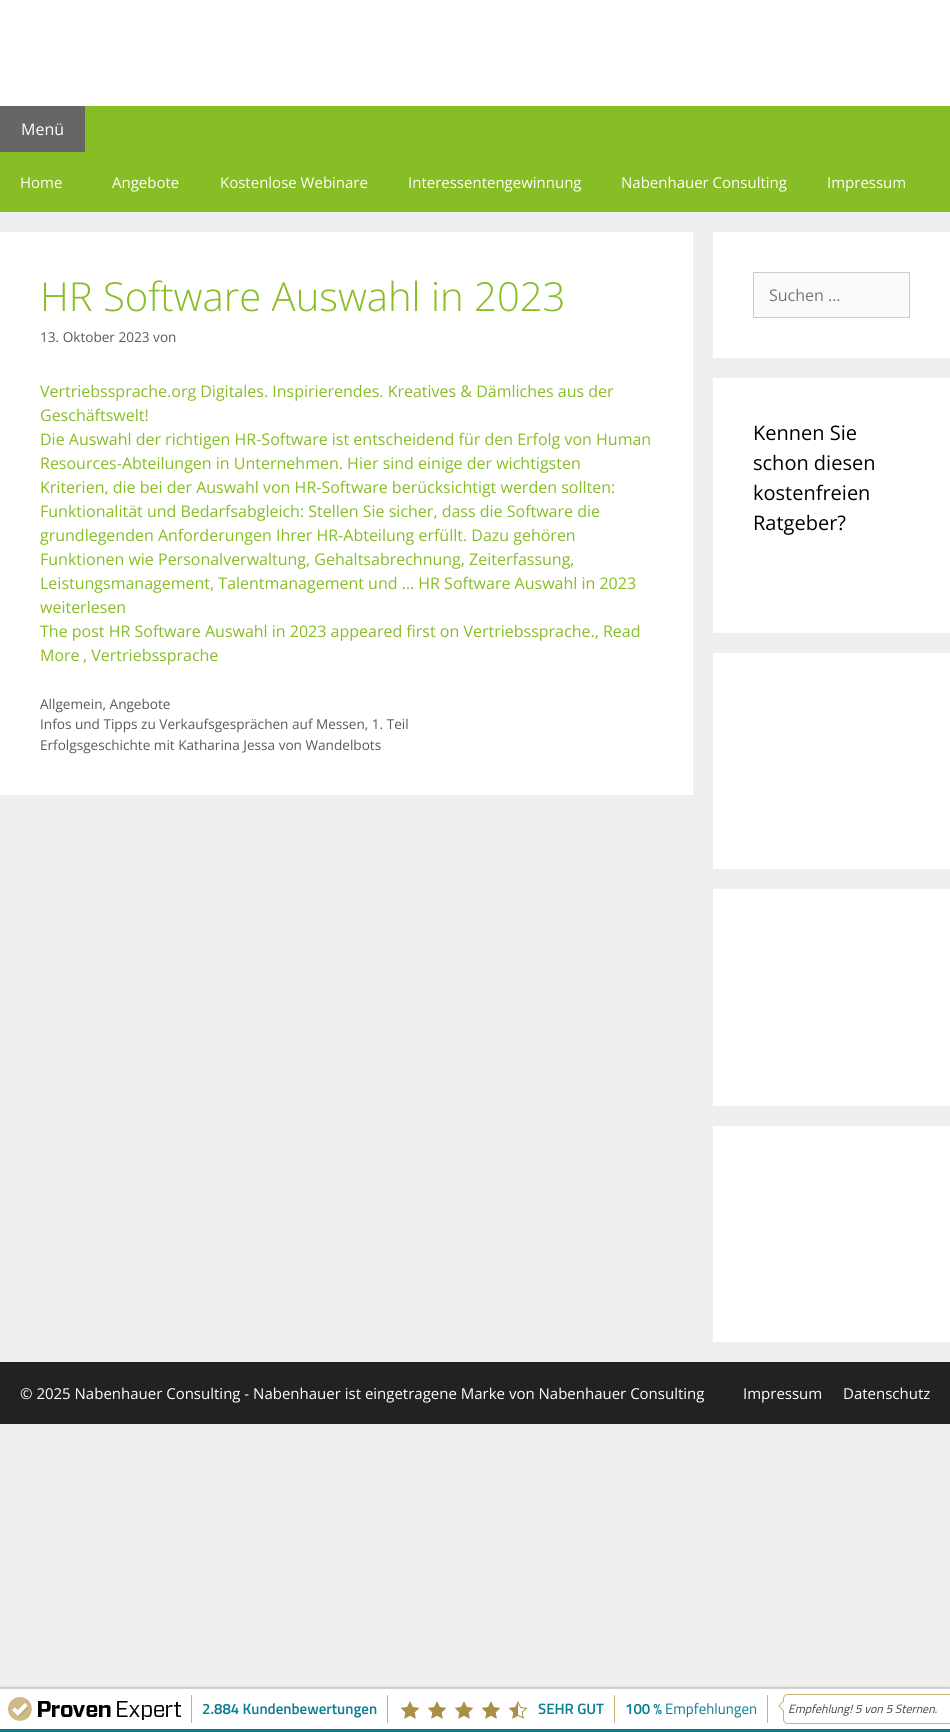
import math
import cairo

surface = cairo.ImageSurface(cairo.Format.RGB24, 950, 1732)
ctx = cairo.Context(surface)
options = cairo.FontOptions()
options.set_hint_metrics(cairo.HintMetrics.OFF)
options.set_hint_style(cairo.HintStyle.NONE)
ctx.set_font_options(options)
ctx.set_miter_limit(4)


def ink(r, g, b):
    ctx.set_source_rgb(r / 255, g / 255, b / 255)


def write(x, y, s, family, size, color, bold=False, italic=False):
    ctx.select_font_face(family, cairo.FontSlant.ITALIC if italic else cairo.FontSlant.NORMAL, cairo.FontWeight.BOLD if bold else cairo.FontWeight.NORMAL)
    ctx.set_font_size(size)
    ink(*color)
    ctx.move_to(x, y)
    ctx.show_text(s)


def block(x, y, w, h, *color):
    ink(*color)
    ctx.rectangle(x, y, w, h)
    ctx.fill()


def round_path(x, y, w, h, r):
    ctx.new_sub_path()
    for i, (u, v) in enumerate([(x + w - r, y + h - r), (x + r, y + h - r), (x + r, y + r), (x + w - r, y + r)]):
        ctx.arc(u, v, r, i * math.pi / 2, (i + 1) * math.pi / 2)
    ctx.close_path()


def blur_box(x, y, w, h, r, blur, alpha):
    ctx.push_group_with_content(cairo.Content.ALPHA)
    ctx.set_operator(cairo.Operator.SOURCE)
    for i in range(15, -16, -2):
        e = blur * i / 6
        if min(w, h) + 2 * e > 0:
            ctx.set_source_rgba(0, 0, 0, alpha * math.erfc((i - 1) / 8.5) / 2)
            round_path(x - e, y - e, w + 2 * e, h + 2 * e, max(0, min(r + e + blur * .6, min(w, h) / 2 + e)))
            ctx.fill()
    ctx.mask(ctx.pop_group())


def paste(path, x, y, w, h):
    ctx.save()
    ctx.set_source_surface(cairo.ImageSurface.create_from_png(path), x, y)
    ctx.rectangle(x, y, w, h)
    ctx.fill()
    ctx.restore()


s1 = dict(family="Open Sans", size=16, color=(255, 255, 255))
s2 = dict(family="Open Sans", size=15, color=(255, 255, 255))
s3 = dict(family="Open Sans Light", size=40, color=(135, 189, 37))
s4 = dict(family="Open Sans", size=13.6, color=(89, 89, 89))
s5 = dict(family="Open Sans", size=16, color=(135, 189, 37))
s6 = dict(family="Open Sans", size=16, color=(117, 117, 117))
s7 = dict(family="Open Sans", size=20, color=(0, 0, 0))
s8 = dict(family="Titillium Web SemiBold", size=15, color=(9, 126, 146))
s9 = dict(family="Titillium Web", size=15, color=(9, 126, 146))
s10 = dict(family="Titillium Web", size=12, color=(68, 68, 68), italic=True)

ink(239, 239, 239)
ctx.paint()
block(0, 0, 950, 106, 255, 255, 255)
block(0, 106, 950, 106, 135, 189, 37)
block(0, 106, 85, 46, 102, 102, 102)
write(21, 135, "Menü", **s1)
write(20, 188, "Home", **s2)
write(112, 188, "Angebote", **s2)
write(220, 188, "Kostenlose Webinare", **s2)
write(408, 188, "Interessentengewinnung", **s2)
write(621, 188, "Nabenhauer Consulting", **s2)
write(827, 188, "Impressum", **s2)
block(0, 232, 693, 563, 255, 255, 255)
write(40, 311, "HR Software Auswahl in 2023", **s3)
write(40, 342, "13. Oktober 2023 von", **s4)
write(40, 397, "Vertriebssprache.org Digitales. Inspirierendes. Kreatives & Dämliches aus der", **s5)
write(40, 421, "Geschäftswelt!", **s5)
write(40, 445, "Die Auswahl der richtigen HR-Software ist entscheidend für den Erfolg von Human", **s5)
write(40, 469, "Resources-Abteilungen in Unternehmen. Hier sind einige der wichtigsten", **s5)
write(40, 493, "Kriterien, die bei der Auswahl von HR-Software berücksichtigt werden sollten:", **s5)
write(40, 517, "Funktionalität und Bedarfsabgleich: Stellen Sie sicher, dass die Software die", **s5)
write(40, 541, "grundlegenden Anforderungen Ihrer HR-Abteilung erfüllt. Dazu gehören", **s5)
write(40, 565, "Funktionen wie Personalverwaltung, Gehaltsabrechnung, Zeiterfassung,", **s5)
write(40, 589, "Leistungsmanagement, Talentmanagement und … HR Software Auswahl in 2023", **s5)
write(40, 613, "weiterlesen", **s5)
write(40, 637, "The post HR Software Auswahl in 2023 appeared first on Vertriebssprache., Read", **s5)
write(40, 661, "More", **s5)
write(83, 661, ", Vertriebssprache", **s5)
write(40, 709, "Allgemein, Angebote", **s4)
write(40, 729, "Infos und Tipps zu Verkaufsgesprächen auf Messen, 1. Teil", **s4)
write(40, 750, "Erfolgsgeschichte mit Katharina Jessa von Wandelbots", **s4)
block(713, 232, 237, 126, 255, 255, 255)
ink(250, 250, 250)
ctx.rectangle(753.5, 272.5, 156, 45)
ctx.fill_preserve()
ink(204, 204, 204)
ctx.set_line_width(1)
ctx.stroke()
write(769, 301, "Suchen …", **s6)
block(713, 378, 237, 255, 255, 255, 255)
write(753, 440, "Kennen Sie", **s7)
write(753, 470, "schon diesen", **s7)
write(753, 500, "kostenfreien", **s7)
write(753, 530, "Ratgeber?", **s7)
block(713, 653, 237, 216, 255, 255, 255)
block(713, 889, 237, 217, 255, 255, 255)
block(713, 1126, 237, 216, 255, 255, 255)
block(0, 1362, 950, 62, 34, 34, 34)
write(20, 1399, "© 2025 Nabenhauer Consulting - Nabenhauer ist eingetragene Marke von Nabenhauer Consulting", **s2)
write(743, 1399, "Impressum", **s2)
write(843, 1399, "Datenschutz", **s2)
ink(136, 136, 136)
blur_box(0, 1688, 950, 44, 0, 1, 1)
block(0, 1689, 950, 40, 255, 255, 255)
block(0, 1688, 950, 1, 211, 211, 211)
paste("pic1.png", 8, 1697, 173, 24)
block(191, 1695, 1, 28, 200, 178, 116)
write(202, 1714, "2.884 Kundenbewertungen", **s8)
block(387, 1695, 1, 28, 200, 178, 116)
paste("pic2.png", 400, 1701, 20, 18)
paste("pic2.png", 427, 1701, 20, 18)
paste("pic2.png", 454, 1701, 20, 18)
paste("pic2.png", 481, 1701, 20, 18)
paste("pic3.png", 508, 1701, 20, 18)
write(538, 1714, "SEHR GUT", **s8)
block(614, 1695, 1, 28, 200, 178, 116)
write(625, 1714, "100 %", **s8)
write(665, 1714, "Empfehlungen", **s9)
block(767, 1695, 1, 28, 200, 178, 116)
paste("pic4.png", 778, 1694, 172, 30)
write(788, 1713, "Empfehlung! 5 von 5 Sternen.", **s10)
block(0, 1729, 950, 3, 9, 126, 146)
surface.write_to_png("screenshot.png")
